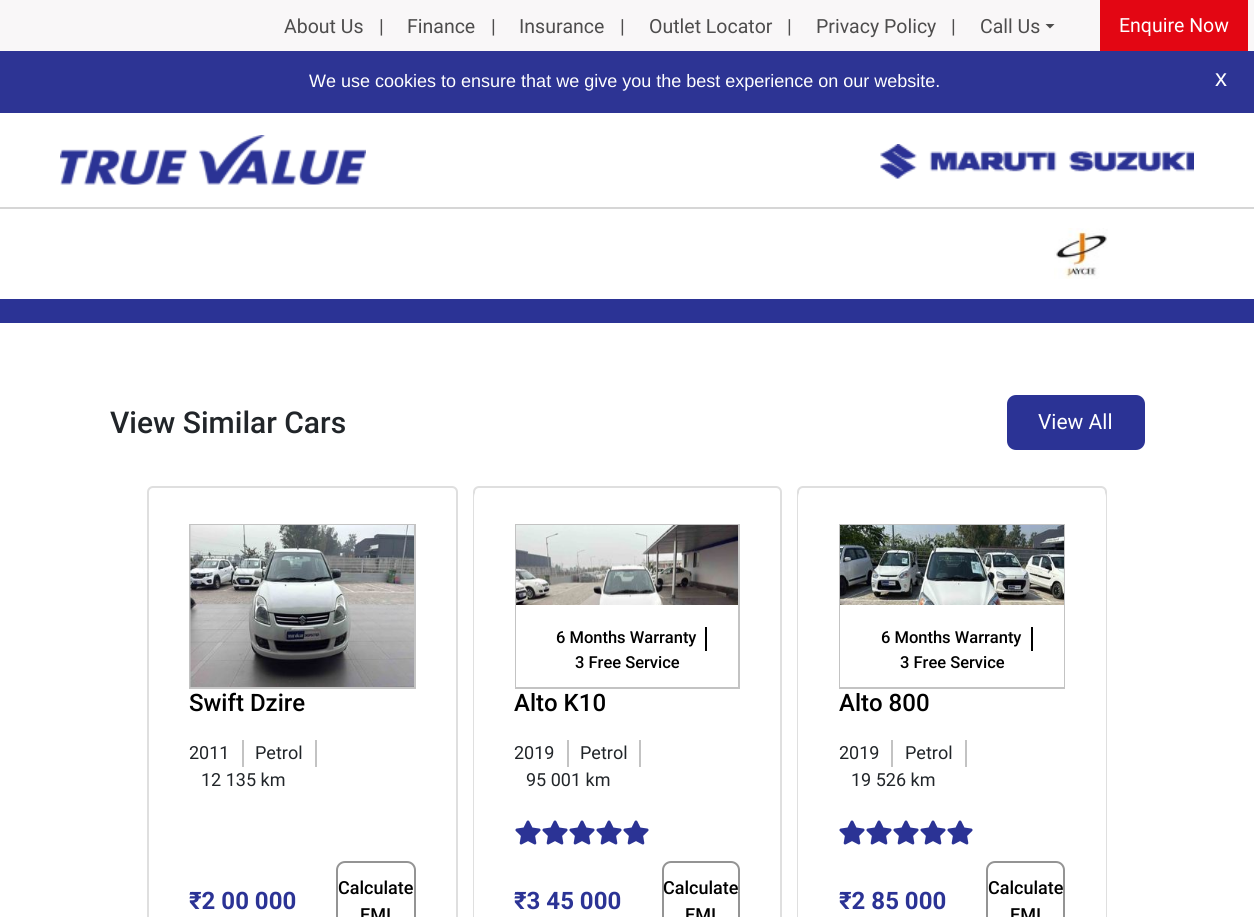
import math
import cairo

surface = cairo.ImageSurface(cairo.Format.RGB24, 1254, 917)
ctx = cairo.Context(surface)
options = cairo.FontOptions()
options.set_hint_metrics(cairo.HintMetrics.OFF)
options.set_hint_style(cairo.HintStyle.NONE)
ctx.set_font_options(options)
ctx.set_miter_limit(4)


def ink(r, g, b):
    ctx.set_source_rgb(r / 255, g / 255, b / 255)


def write(x, y, s, family, size, color, bold=False, italic=False):
    ctx.select_font_face(family, cairo.FontSlant.ITALIC if italic else cairo.FontSlant.NORMAL, cairo.FontWeight.BOLD if bold else cairo.FontWeight.NORMAL)
    ctx.set_font_size(size)
    ink(*color)
    ctx.move_to(x, y)
    ctx.show_text(s)


def block(x, y, w, h, *color):
    ink(*color)
    ctx.rectangle(x, y, w, h)
    ctx.fill()


def round_path(x, y, w, h, r):
    ctx.new_sub_path()
    for i, (u, v) in enumerate([(x + w - r, y + h - r), (x + r, y + h - r), (x + r, y + r), (x + w - r, y + r)]):
        ctx.arc(u, v, r, i * math.pi / 2, (i + 1) * math.pi / 2)
    ctx.close_path()


def paste(path, x, y, w, h):
    ctx.save()
    ctx.set_source_surface(cairo.ImageSurface.create_from_png(path), x, y)
    ctx.rectangle(x, y, w, h)
    ctx.fill()
    ctx.restore()


s1 = dict(family="Roboto", size=19.5, color=(78, 77, 77))
s2 = dict(family="Roboto", size=19.5, color=(255, 255, 255))
s3 = dict(family="Liberation Sans", size=18, color=(255, 255, 255))
s4 = dict(family="Liberation Sans", size=24, color=(255, 255, 255))
s5 = dict(family="Roboto Medium", size=30, color=(33, 37, 41))
s6 = dict(family="Roboto", size=21, color=(255, 255, 255))
s7 = dict(family="Roboto Medium", size=24, color=(0, 0, 0))
s8 = dict(family="Roboto", size=18, color=(33, 37, 41))
s9 = dict(family="Roboto", size=24, color=(43, 51, 149), bold=True)
s10 = dict(family="Roboto Medium", size=18, color=(0, 0, 0))
s11 = dict(family="Roboto Medium", size=16.5, color=(0, 0, 0))

ink(255, 255, 255)
ctx.paint()
block(0, 0, 1254, 51, 249, 247, 248)
write(284, 33, "About Us", **s1)
write(379, 33, "|", **s1)
write(407, 33, "Finance", **s1)
write(491, 33, "|", **s1)
write(519, 33, "Insurance", **s1)
write(620, 33, "|", **s1)
write(649, 33, "Outlet Locator", **s1)
write(787, 33, "|", **s1)
write(816, 33, "Privacy Policy", **s1)
write(951, 33, "|", **s1)
write(980, 33, "Call Us", **s1)
ctx.new_path()
ctx.move_to(1045.5, 24)
ctx.line_to(1054.5, 24)
ctx.line_to(1050, 28.5)
ctx.close_path()
ctx.fill()
block(1100, 0, 148, 51, 227, 6, 19)
write(1119, 32, "Enquire Now", **s2)
block(0, 51, 1254, 62, 45, 52, 148)
write(309, 87, "We use cookies to ensure that we give you the best experience on our website.", **s3)
write(1215, 86, "x", **s4)
block(0, 207, 1254, 2, 214, 214, 214)
paste("pic1.png", 60, 135, 306, 50)
paste("pic2.png", 880, 144, 314, 35)
paste("pic3.png", 1054, 228, 54, 51)
block(0, 299, 1254, 24, 43, 51, 149)
write(110, 433, "View Similar Cars", **s5)
ink(43, 51, 149)
round_path(1008, 396, 136, 53, 8)
ctx.fill_preserve()
ctx.stroke()
write(1038, 429, "View All", **s6)
round_path(148, 487, 309, 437, 5)
ink(223, 223, 223)
ctx.stroke()
ctx.rectangle(190, 525, 225, 163)
ink(195, 195, 195)
ctx.stroke()
paste("pic4.png", 190, 525, 224, 162)
write(189, 711, "Swift Dzire", **s7)
block(242, 740, 2, 27, 195, 195, 195)
write(189, 759, "2011", **s8)
block(315, 740, 2, 27, 195, 195, 195)
write(255, 759, "Petrol", **s8)
write(201, 786, "12 135 km", **s8)
write(189, 909, "₹2 00 000", **s9)
round_path(337, 862, 78, 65, 8)
ink(148, 148, 148)
ctx.stroke()
write(338, 894, "Calculate", **s10)
write(360, 921, "EMI", **s10)
round_path(474, 487, 307, 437, 5)
ink(223, 223, 223)
ctx.stroke()
ink(255, 255, 255)
round_path(474, 488, 306, 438, 9)
ctx.fill()
ctx.rectangle(516, 525, 223, 163)
ink(195, 195, 195)
ctx.stroke()
paste("pic5.png", 516, 525, 222, 80)
block(516, 605, 1, 82, 255, 255, 255)
block(705, 627, 2, 24, 0, 0, 0)
write(556, 643, "6 Months Warranty", **s11)
write(575, 668, "3 Free Service", **s11)
write(514, 711, "Alto K10", **s7)
block(567, 740, 2, 27, 195, 195, 195)
write(514, 759, "2019", **s8)
block(639, 740, 2, 27, 195, 195, 195)
write(580, 759, "Petrol", **s8)
write(526, 786, "95 001 km", **s8)
paste("pic6.png", 515, 820, 26, 25)
paste("pic6.png", 542, 820, 26, 25)
paste("pic6.png", 569, 820, 26, 25)
paste("pic6.png", 596, 820, 26, 25)
paste("pic6.png", 623, 820, 26, 25)
write(514, 909, "₹3 45 000", **s9)
round_path(663, 862, 76, 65, 8)
ink(148, 148, 148)
ctx.stroke()
write(663, 894, "Calculate", **s10)
write(685, 921, "EMI", **s10)
round_path(798, 487, 308, 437, 5)
ink(223, 223, 223)
ctx.stroke()
ink(255, 255, 255)
round_path(798, 488, 308, 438, 9)
ctx.fill()
ctx.rectangle(840, 525, 224, 163)
ink(195, 195, 195)
ctx.stroke()
paste("pic7.png", 840, 525, 224, 80)
block(840, 605, 224, 82, 255, 255, 255)
block(1031, 627, 2, 24, 0, 0, 0)
write(881, 643, "6 Months Warranty", **s11)
write(900, 668, "3 Free Service", **s11)
write(839, 711, "Alto 800", **s7)
block(891, 740, 2, 27, 195, 195, 195)
write(839, 759, "2019", **s8)
block(965, 740, 2, 27, 195, 195, 195)
write(905, 759, "Petrol", **s8)
write(851, 786, "19 526 km", **s8)
paste("pic6.png", 839, 820, 26, 25)
paste("pic6.png", 866, 820, 26, 25)
paste("pic6.png", 893, 820, 26, 25)
paste("pic6.png", 920, 820, 26, 25)
paste("pic6.png", 947, 820, 26, 25)
write(839, 909, "₹2 85 000", **s9)
round_path(987, 862, 77, 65, 8)
ink(148, 148, 148)
ctx.stroke()
write(988, 894, "Calculate", **s10)
write(1010, 921, "EMI", **s10)
surface.write_to_png("screenshot.png")
